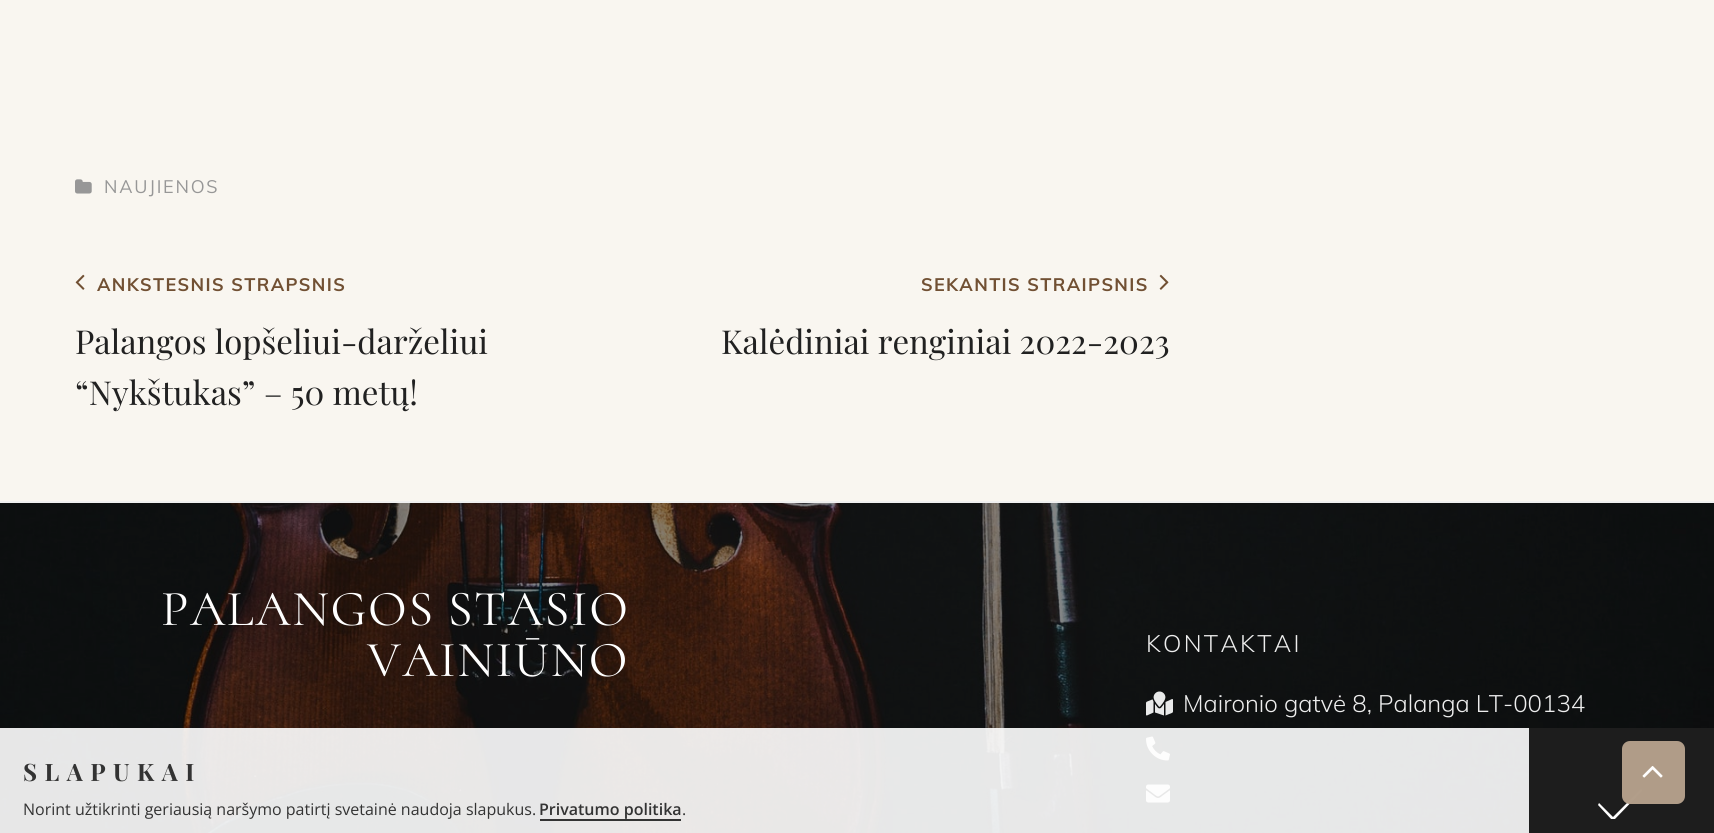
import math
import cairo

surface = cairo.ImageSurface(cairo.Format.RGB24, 1714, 833)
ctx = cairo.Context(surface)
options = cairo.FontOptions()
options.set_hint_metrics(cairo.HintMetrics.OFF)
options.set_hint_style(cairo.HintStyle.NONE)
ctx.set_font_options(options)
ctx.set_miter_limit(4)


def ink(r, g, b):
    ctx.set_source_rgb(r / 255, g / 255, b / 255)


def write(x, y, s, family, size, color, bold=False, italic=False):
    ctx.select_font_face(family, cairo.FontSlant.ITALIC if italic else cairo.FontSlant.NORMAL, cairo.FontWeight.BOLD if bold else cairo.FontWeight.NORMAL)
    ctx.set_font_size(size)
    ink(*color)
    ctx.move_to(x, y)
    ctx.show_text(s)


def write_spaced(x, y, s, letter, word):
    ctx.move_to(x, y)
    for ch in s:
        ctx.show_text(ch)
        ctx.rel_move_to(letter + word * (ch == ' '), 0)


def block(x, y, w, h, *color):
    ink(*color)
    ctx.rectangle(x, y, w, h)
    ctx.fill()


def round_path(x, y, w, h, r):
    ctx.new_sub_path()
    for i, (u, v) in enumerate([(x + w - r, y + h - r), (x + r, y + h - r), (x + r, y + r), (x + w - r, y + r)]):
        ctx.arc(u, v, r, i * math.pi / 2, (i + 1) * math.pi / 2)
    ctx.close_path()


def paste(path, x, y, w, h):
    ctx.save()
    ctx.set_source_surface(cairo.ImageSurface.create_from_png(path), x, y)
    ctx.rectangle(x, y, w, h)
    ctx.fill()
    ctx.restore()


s1 = dict(family="Playfair Display", size=33, color=(33, 33, 33))
s2 = dict(family="Mulish Light", size=24, color=(237, 237, 237))
s3 = dict(family="Open Sans", size=16, color=(51, 51, 51))
s4 = dict(family="Open Sans SemiBold", size=16, color=(51, 51, 51))

ink(255, 255, 255)
ctx.paint()
block(0, 0, 1714, 501, 249, 246, 240)
block(0, 501, 1714, 2, 240, 240, 240)
paste("pic1.png", 75, 179, 17, 15)
ctx.select_font_face("Muli")
ctx.set_font_size(18)
ink(151, 151, 151)
write_spaced(104, 193, "NAUJIENOS", 1.75, 0)
paste("pic2.png", 75, 274, 10, 16)
ctx.select_font_face("Muli", cairo.FontSlant.NORMAL, cairo.FontWeight.BOLD)
ink(113, 80, 51)
write_spaced(97, 291, "ANKSTESNIS STRAPSNIS", 1.35, 0)
write(75, 354, "Palangos lopšeliui-darželiui", **s1)
write(75, 405, "“Nykštukas” – 50 metų!", **s1)
ctx.select_font_face("Muli", cairo.FontSlant.NORMAL, cairo.FontWeight.BOLD)
ctx.set_font_size(18)
ink(113, 80, 51)
write_spaced(921, 291, "SEKANTIS STRAIPSNIS", 1.35, 0)
paste("pic3.png", 1159, 274, 10, 16)
write(721, 354, "Kalėdiniai renginiai 2022-2023", **s1)
paste("pic4.png", 0, 503, 1714, 330)
ctx.select_font_face("Cormorant")
ctx.set_font_size(50.5)
ink(255, 255, 255)
write_spaced(161, 625, "PALANGOS STASIO", 1.5, 0)
write_spaced(367, 676, "VAINIŪNO", 1.5, 0)
ctx.select_font_face("Mulish Light")
ctx.set_font_size(24)
ink(237, 237, 237)
write_spaced(1146, 652, "KONTAKTAI", 2.25, 0)
paste("pic5.png", 1146, 691, 27, 25)
write(1183, 712, "Maironio gatvė 8, Palanga LT-00134", **s2)
paste("pic6.png", 1146, 736, 24, 25)
paste("pic7.png", 1146, 784, 24, 19)
ctx.set_source_rgba(1, 1, 1, 0.9)
ctx.rectangle(0, 728, 1529, 105)
ctx.fill()
ctx.select_font_face("Playfair Display", cairo.FontSlant.NORMAL, cairo.FontWeight.BOLD)
ink(51, 51, 51)
write_spaced(23, 781, "SLAPUKAI", 7.5, 0)
write(23, 815, "Norint užtikrinti geriausią naršymo patirtį svetainė naudoja slapukus.", **s3)
write(539, 815, "Privatumo politika", **s4)
block(540, 819, 141, 2, 51, 51, 51)
write(682, 815, ".", **s3)
block(1529, 728, 185, 105, 29, 29, 29)
ctx.save()
ctx.rectangle(1598, 789, 45, 30)
ctx.clip()
ink(255, 255, 255)
ctx.new_path()
ctx.move_to(1614, 820)
ctx.line_to(1612, 820)
ctx.line_to(1598, 805)
ctx.line_to(1599, 803)
ctx.line_to(1613, 817)
ctx.line_to(1641, 789)
ctx.line_to(1642, 791)
ctx.close_path()
ctx.fill()
ctx.restore()
ctx.set_source_rgba(0.698, 0.616, 0.537, 0.99)
round_path(1622, 741, 63, 63, 8)
ctx.fill()
paste("pic8.png", 1642, 766, 21, 12)
surface.write_to_png("screenshot.png")
